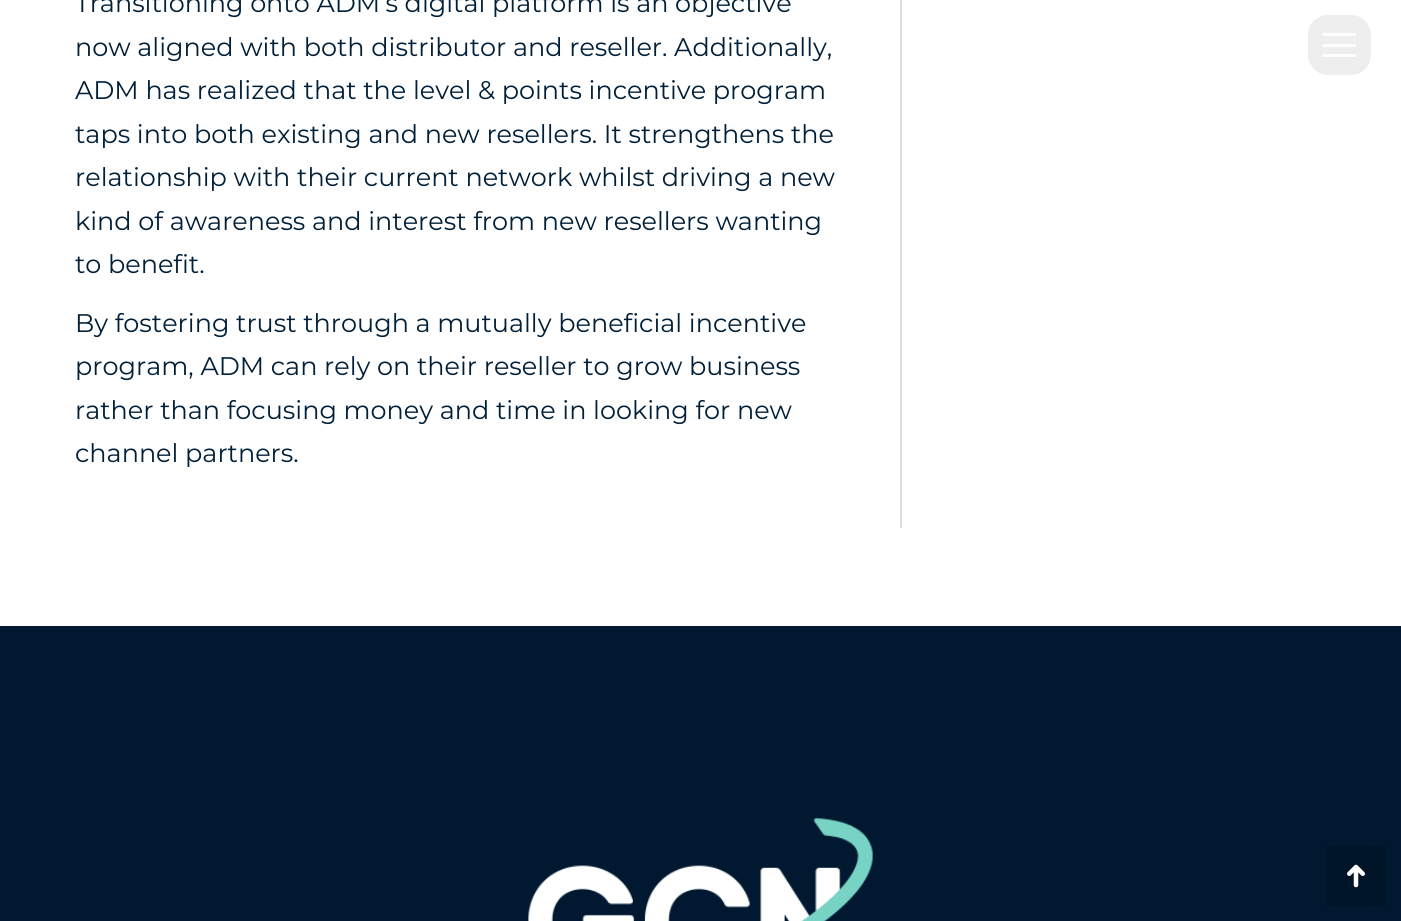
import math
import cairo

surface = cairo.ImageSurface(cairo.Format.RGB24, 1401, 921)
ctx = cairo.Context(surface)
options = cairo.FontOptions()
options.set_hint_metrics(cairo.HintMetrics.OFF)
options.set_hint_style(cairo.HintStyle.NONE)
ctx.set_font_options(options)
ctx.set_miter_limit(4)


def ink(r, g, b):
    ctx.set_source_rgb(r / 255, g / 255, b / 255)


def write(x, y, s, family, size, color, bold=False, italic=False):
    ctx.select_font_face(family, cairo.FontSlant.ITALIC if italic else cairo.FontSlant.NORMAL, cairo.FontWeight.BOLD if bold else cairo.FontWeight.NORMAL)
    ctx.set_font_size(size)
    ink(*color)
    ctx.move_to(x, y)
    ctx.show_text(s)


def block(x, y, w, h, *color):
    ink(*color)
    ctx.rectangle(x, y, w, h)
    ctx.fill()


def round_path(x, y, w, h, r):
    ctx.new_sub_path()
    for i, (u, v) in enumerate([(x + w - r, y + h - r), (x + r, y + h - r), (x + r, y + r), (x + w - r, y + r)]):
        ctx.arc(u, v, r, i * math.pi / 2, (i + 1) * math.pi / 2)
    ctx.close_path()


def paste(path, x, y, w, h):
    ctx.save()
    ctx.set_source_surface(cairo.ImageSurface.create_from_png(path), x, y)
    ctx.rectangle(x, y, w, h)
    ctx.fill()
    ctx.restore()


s1 = dict(family="Montserrat", size=25.5, color=(0, 31, 56))

ink(0, 25, 49)
ctx.paint()
block(0, 0, 1401, 626, 255, 255, 255)
block(900, 0, 2, 528, 220, 220, 220)
write(75, 12, "Transitioning onto ADM’s digital platform is an objective", **s1)
write(75, 56, "now aligned with both distributor and reseller. Additionally,", **s1)
write(75, 99, "ADM has realized that the level & points incentive program", **s1)
write(75, 143, "taps into both existing and new resellers. It strengthens the", **s1)
write(75, 186, "relationship with their current network whilst driving a new", **s1)
write(75, 230, "kind of awareness and interest from new resellers wanting", **s1)
write(75, 273, "to benefit.", **s1)
write(75, 332, "By fostering trust through a mutually beneficial incentive", **s1)
write(75, 375, "program, ADM can rely on their reseller to grow business", **s1)
write(75, 419, "rather than focusing money and time in looking for new", **s1)
write(75, 462, "channel partners.", **s1)
ink(238, 238, 238)
round_path(1308, 15, 63, 60, 20)
ctx.fill()
block(1323, 33, 33, 3, 255, 255, 255)
block(1323, 44, 33, 3, 255, 255, 255)
block(1323, 54, 33, 3, 255, 255, 255)
paste("pic1.png", 528, 818, 345, 103)
block(1326, 846, 60, 60, 0, 20, 39)
paste("pic2.png", 1347, 864, 18, 24)
surface.write_to_png("screenshot.png")
